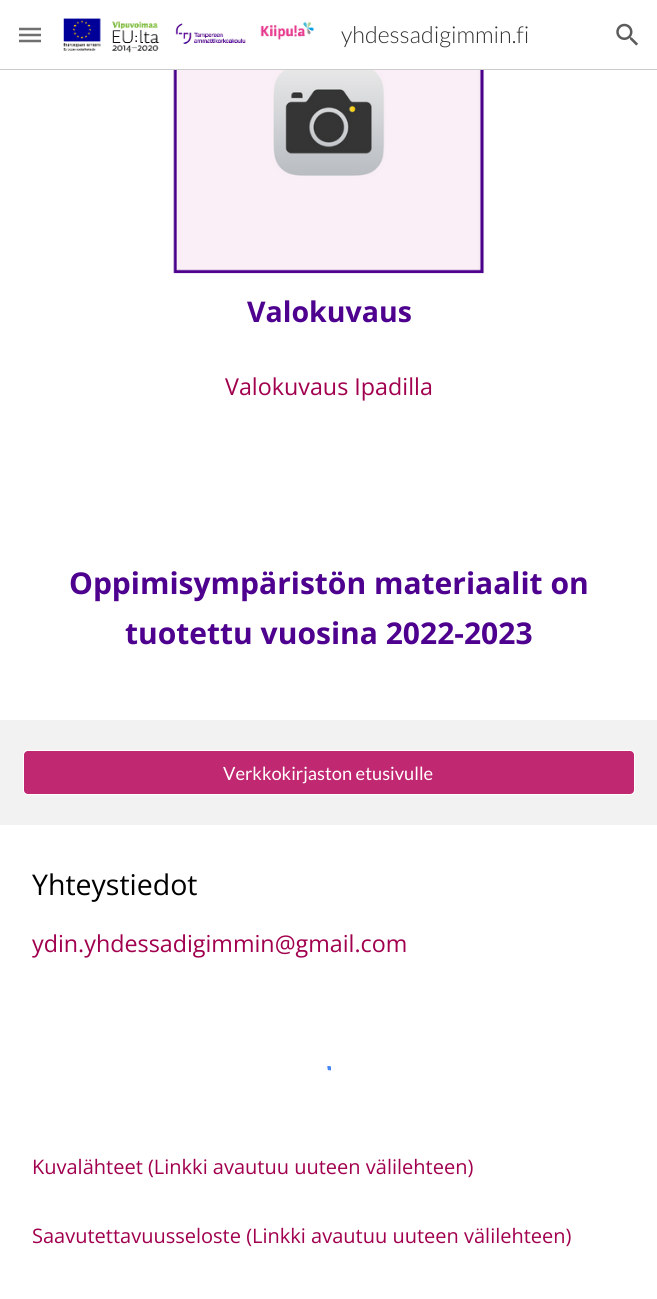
import math
import cairo

surface = cairo.ImageSurface(cairo.Format.RGB24, 657, 1299)
ctx = cairo.Context(surface)
options = cairo.FontOptions()
options.set_hint_metrics(cairo.HintMetrics.OFF)
options.set_hint_style(cairo.HintStyle.NONE)
ctx.set_font_options(options)
ctx.set_miter_limit(4)


def ink(r, g, b):
    ctx.set_source_rgb(r / 255, g / 255, b / 255)


def write(x, y, s, family, size, color, bold=False, italic=False):
    ctx.select_font_face(family, cairo.FontSlant.ITALIC if italic else cairo.FontSlant.NORMAL, cairo.FontWeight.BOLD if bold else cairo.FontWeight.NORMAL)
    ctx.set_font_size(size)
    ink(*color)
    ctx.move_to(x, y)
    ctx.show_text(s)


def block(x, y, w, h, *color):
    ink(*color)
    ctx.rectangle(x, y, w, h)
    ctx.fill()


def round_path(x, y, w, h, r):
    ctx.new_sub_path()
    for i, (u, v) in enumerate([(x + w - r, y + h - r), (x + r, y + h - r), (x + r, y + r), (x + w - r, y + r)]):
        ctx.arc(u, v, r, i * math.pi / 2, (i + 1) * math.pi / 2)
    ctx.close_path()


def paste(path, x, y, w, h):
    ctx.save()
    ctx.set_source_surface(cairo.ImageSurface.create_from_png(path), x, y)
    ctx.rectangle(x, y, w, h)
    ctx.fill()
    ctx.restore()


s1 = dict(family="Lato Light", size=23.3, color=(51, 51, 51))
s2 = dict(family="Open Sans", size=28.5, color=(78, 0, 142), bold=True)
s3 = dict(family="Open Sans", size=23.3, color=(161, 0, 78))
s4 = dict(family="Open Sans", size=30, color=(78, 0, 142), bold=True)
s5 = dict(family="Lato", size=18.25, color=(255, 255, 255))
s6 = dict(family="Open Sans", size=28.5, color=(0, 0, 0))
s7 = dict(family="Open Sans", size=20, color=(161, 0, 78))

ink(255, 255, 255)
ctx.paint()
ctx.new_path()
ctx.move_to(19, 29)
ctx.line_to(41, 29)
ctx.move_to(19, 35)
ctx.line_to(41, 35)
ctx.move_to(19, 41)
ctx.line_to(41, 41)
ink(112, 112, 112)
ctx.set_line_width(2.5)
ctx.stroke()
paste("pic1.png", 63, 18, 252, 35)
write(341, 43, "yhdessadigimmin.fi", **s1)
block(0, 69, 657, 1, 204, 204, 204)
paste("pic2.png", 616, 23, 22, 23)
paste("pic3.png", 173, 70, 312, 204)
write(247, 322, "Valokuvaus", **s2)
write(225, 395, "Valokuvaus Ipadilla", **s3)
write(69, 594, "Oppimisympäristön materiaalit on", **s4)
write(125, 644, "tuotettu vuosina 2022-2023", **s4)
block(0, 720, 657, 105, 242, 242, 242)
round_path(23.5, 750.5, 611, 44, 4.5)
ink(255, 255, 255)
ctx.set_line_width(1)
ctx.stroke()
ink(193, 40, 114)
round_path(24, 751, 610, 43, 4)
ctx.fill()
write(223, 780, "Verkkokirjaston etusivulle", **s5)
write(32, 895, "Yhteystiedot", **s6)
write(32, 952, "ydin.yhdessadigimmin@gmail.com", **s3)
ctx.save()
ctx.rectangle(311, 1066, 18, 35)
ctx.clip()
ctx.new_path()
ctx.move_to(327.5, 1068)
ctx.curve_to(330.5, 1067.5, 333.5, 1068.5, 336.5, 1070)
ctx.curve_to(349.5, 1077, 345.5, 1098, 330, 1099)
ink(68, 134, 244)
ctx.set_line_width(3.7)
ctx.stroke()
ctx.restore()
ctx.save()
ctx.rectangle(328, 1066, 3, 35)
ctx.clip()
ctx.new_path()
ctx.move_to(317.5, 1095)
ctx.curve_to(314, 1091, 312.5, 1086, 313.5, 1080.5)
ctx.curve_to(317, 1062.5, 344.5, 1065, 344.5, 1084)
ctx.curve_to(344.5, 1088, 342.5, 1092, 340, 1095)
ink(68, 134, 244)
ctx.set_line_width(3.8)
ctx.stroke()
ctx.restore()
ctx.save()
ctx.rectangle(329, 1066, 17, 35)
ctx.clip()
ctx.new_path()
ctx.move_to(327.5, 1099)
ctx.curve_to(312, 1098, 308, 1077, 321, 1070)
ctx.curve_to(324, 1068.5, 327, 1067.5, 330, 1068)
ink(68, 134, 244)
ctx.set_line_width(3.7)
ctx.stroke()
ctx.restore()
write(32, 1174, "Kuvalähteet (Linkki avautuu uuteen välilehteen)", **s7)
write(32, 1243, "Saavutettavuusseloste (Linkki avautuu uuteen välilehteen)", **s7)
surface.write_to_png("screenshot.png")
